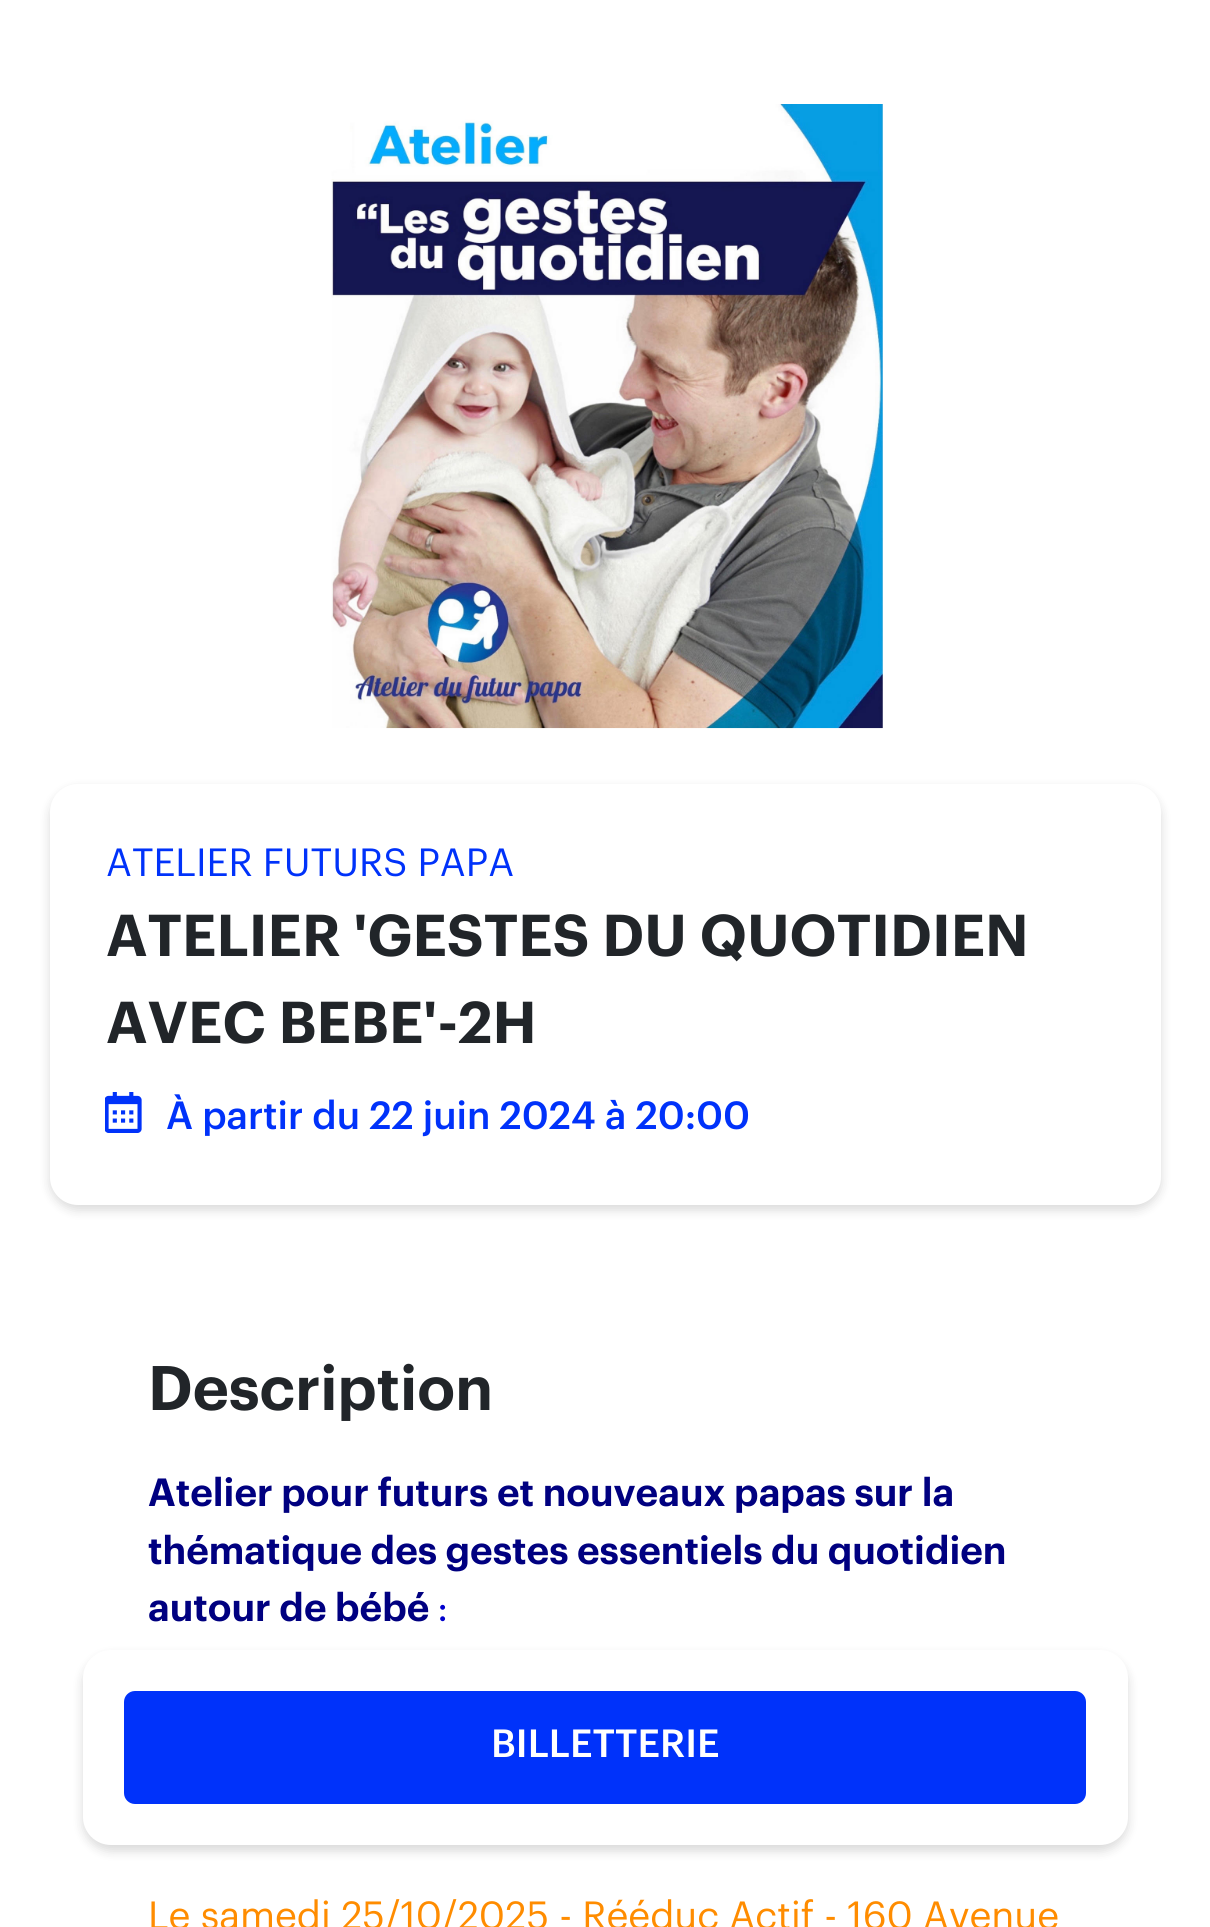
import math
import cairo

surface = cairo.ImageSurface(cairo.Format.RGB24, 1210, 1927)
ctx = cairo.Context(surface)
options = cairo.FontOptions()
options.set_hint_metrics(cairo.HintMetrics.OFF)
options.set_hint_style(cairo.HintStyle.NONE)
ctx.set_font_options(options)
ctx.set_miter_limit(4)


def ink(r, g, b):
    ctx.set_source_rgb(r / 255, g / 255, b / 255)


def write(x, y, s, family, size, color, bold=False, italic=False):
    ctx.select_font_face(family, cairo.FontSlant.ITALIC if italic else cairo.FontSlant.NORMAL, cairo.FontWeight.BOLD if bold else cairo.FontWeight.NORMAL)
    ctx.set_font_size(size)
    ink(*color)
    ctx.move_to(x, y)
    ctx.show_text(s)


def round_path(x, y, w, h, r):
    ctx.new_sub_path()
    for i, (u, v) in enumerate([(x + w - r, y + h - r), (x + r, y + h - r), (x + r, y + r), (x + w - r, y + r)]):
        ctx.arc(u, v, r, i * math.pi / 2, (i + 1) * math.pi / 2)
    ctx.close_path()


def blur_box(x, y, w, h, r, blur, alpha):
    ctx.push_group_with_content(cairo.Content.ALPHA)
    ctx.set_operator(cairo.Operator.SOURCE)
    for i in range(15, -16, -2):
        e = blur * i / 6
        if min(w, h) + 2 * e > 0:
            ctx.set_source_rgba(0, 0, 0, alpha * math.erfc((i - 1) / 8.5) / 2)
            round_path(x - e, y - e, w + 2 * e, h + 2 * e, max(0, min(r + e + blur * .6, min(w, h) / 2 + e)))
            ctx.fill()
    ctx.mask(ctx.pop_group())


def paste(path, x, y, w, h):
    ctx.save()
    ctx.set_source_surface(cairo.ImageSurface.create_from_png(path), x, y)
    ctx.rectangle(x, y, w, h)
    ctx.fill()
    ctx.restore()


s1 = dict(family="Graphik", size=38.5, color=(0, 50, 250))
s2 = dict(family="Graphik SemiBold", size=57.75, color=(33, 37, 41))
s3 = dict(family="Graphik Medium", size=38.5, color=(0, 50, 250))
s4 = dict(family="Graphik Medium", size=38.5, color=(255, 255, 255))
s5 = dict(family="Graphik SemiBold", size=61.5, color=(33, 37, 41))
s6 = dict(family="Graphik SemiBold", size=38.5, color=(0, 0, 128))
s7 = dict(family="Graphik", size=38.5, color=(0, 0, 205))
s8 = dict(family="Graphik", size=38.5, color=(255, 140, 0))

ink(255, 255, 255)
ctx.paint()
paste("pic1.png", 331, 104, 552, 625)
ink(0, 0, 0)
blur_box(50, 789, 1111, 421, 28, 5.5, 0.15)
ink(255, 255, 255)
round_path(50, 784, 1111, 421, 28)
ctx.fill()
write(106, 876, "ATELIER FUTURS PAPA", **s1)
write(106, 956, "ATELIER 'GESTES DU QUOTIDIEN", **s2)
write(106, 1043, "AVEC BEBE'-2H", **s2)
paste("pic2.png", 105, 1092, 37, 41)
write(166, 1129, "À partir du 22 juin 2024 à 20:00", **s3)
ink(0, 0, 0)
blur_box(83, 1656, 1045, 195, 28, 5.5, 0.15)
ink(255, 255, 255)
round_path(83, 1650, 1045, 195, 28)
ctx.fill()
ink(0, 50, 250)
round_path(124, 1691, 962, 113, 11)
ctx.fill()
write(491, 1757, "BILLETTERIE", **s4)
write(148, 1410, "Description", **s5)
write(148, 1506, "Atelier pour futurs et nouveaux papas sur la", **s6)
write(148, 1564, "thématique des gestes essentiels du quotidien", **s6)
write(148, 1621, "autour de bébé", **s6)
write(437, 1621, ":", **s7)
write(148, 1929, "Le samedi 25/10/2025 - Rééduc Actif - 160 Avenue", **s8)
surface.write_to_png("screenshot.png")
